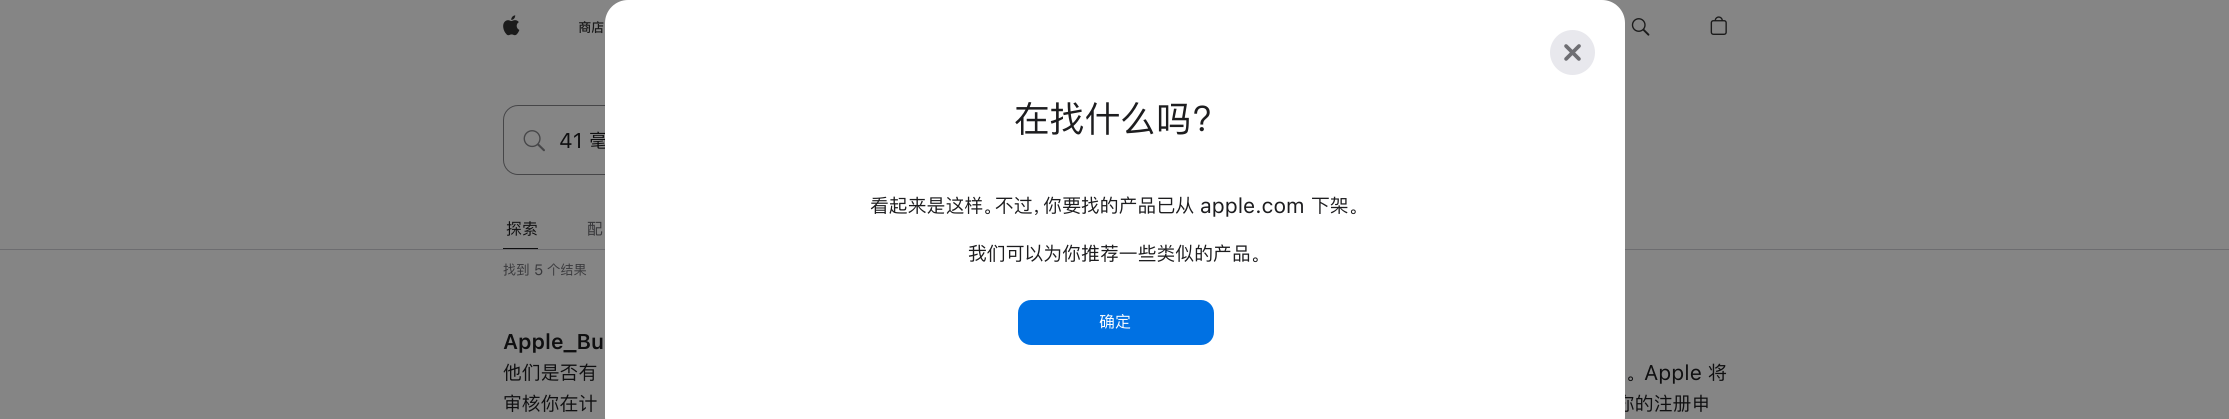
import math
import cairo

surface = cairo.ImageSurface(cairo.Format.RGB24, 2229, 419)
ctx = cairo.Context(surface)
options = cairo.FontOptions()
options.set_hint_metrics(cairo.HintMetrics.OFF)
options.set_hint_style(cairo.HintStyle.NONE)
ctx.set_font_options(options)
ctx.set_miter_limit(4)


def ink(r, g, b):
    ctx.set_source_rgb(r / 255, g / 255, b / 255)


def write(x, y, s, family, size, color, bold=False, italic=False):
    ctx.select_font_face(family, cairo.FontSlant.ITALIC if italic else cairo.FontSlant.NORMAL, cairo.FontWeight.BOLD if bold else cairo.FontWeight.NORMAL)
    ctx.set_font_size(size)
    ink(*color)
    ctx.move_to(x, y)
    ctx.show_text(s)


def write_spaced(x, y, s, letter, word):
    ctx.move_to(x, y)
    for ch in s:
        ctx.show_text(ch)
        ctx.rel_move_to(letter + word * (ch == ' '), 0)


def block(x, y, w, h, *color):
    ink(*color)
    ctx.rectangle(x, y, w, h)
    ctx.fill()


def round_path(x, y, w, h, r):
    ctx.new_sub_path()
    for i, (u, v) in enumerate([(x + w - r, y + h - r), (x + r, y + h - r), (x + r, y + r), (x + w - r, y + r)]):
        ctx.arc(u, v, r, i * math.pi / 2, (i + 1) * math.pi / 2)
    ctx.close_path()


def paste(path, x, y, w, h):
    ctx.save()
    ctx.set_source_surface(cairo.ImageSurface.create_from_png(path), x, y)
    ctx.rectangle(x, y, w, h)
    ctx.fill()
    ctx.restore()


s1 = dict(family="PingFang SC", size=21.25, color=(15, 15, 16))
s2 = dict(family="PingFang SC", size=40, color=(29, 29, 31))
s3 = dict(family="PingFang SC", size=21.25, color=(29, 29, 31))
s4 = dict(family="SF Pro Text", size=21.25, color=(29, 29, 31))
s5 = dict(family="PingFang SC", size=18, color=(255, 255, 255))
s6 = dict(family="SF Pro Text", size=21.25, color=(15, 15, 16))
s7 = dict(family="PingFang SC", size=18, color=(15, 15, 16))
s8 = dict(family="PingFang SC", size=18, color=(57, 57, 60))
s9 = dict(family="PingFang SC", size=15, color=(57, 57, 60))
s10 = dict(family="SF Pro Text", size=15, color=(57, 57, 60))

ink(133, 133, 133)
ctx.paint()
round_path(503.5, 105.5, 724, 69, 14.5)
ink(70, 70, 72)
ctx.set_line_width(1)
ctx.stroke()
write(589, 148, "毫", **s1)
block(0, 249, 2229, 1, 109, 109, 112)
write(1616, 411, "你的注册申", **s1)
ink(255, 255, 255)
round_path(605, 0, 1020, 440, 23)
ctx.fill()
ink(232, 232, 237)
ctx.arc(1572.5, 52.5, 22.5, 0, 2 * math.pi)
ctx.fill()
paste("pic1.png", 1564, 44, 17, 17)
write(1014, 133, "在找什么吗？", **s2)
write(870, 213, "看起来是这样。不过，你要找的产品已从", **s3)
write(1200, 213, "apple.com", **s4)
write(1311, 213, "下架。", **s3)
write(968, 261, "我们可以为你推荐一些类似的产品。", **s3)
ink(0, 113, 227)
round_path(1018, 300, 196, 45, 13)
ctx.fill()
write(1099, 328, "确定", **s5)
paste("pic2.png", 503, 15, 17, 21)
paste("pic3.png", 579, 21, 25, 13)
paste("pic4.png", 1631, 18, 19, 18)
paste("pic5.png", 1710, 16, 17, 19)
paste("pic6.png", 523, 130, 22, 22)
write(559, 148, "41", **s6)
write(506, 235, "探索", **s7)
block(503, 248, 35, 1, 15, 15, 16)
write(587, 235, "配", **s8)
write(503, 275, "找到", **s9)
write(534, 275, "5", **s10)
write(547, 275, "个结果", **s9)
ctx.select_font_face("SF Pro Text SemiBold")
ctx.set_font_size(21.25)
ink(15, 15, 16)
write_spaced(503, 349, "Apple_Bu", 0, 1)
write(503, 380, "他们是否有", **s1)
write(1626, 380, "。", **s1)
write(1644, 380, "Apple", **s6)
write(1708, 380, "将", **s1)
write(503, 411, "审核你在计", **s1)
surface.write_to_png("screenshot.png")
